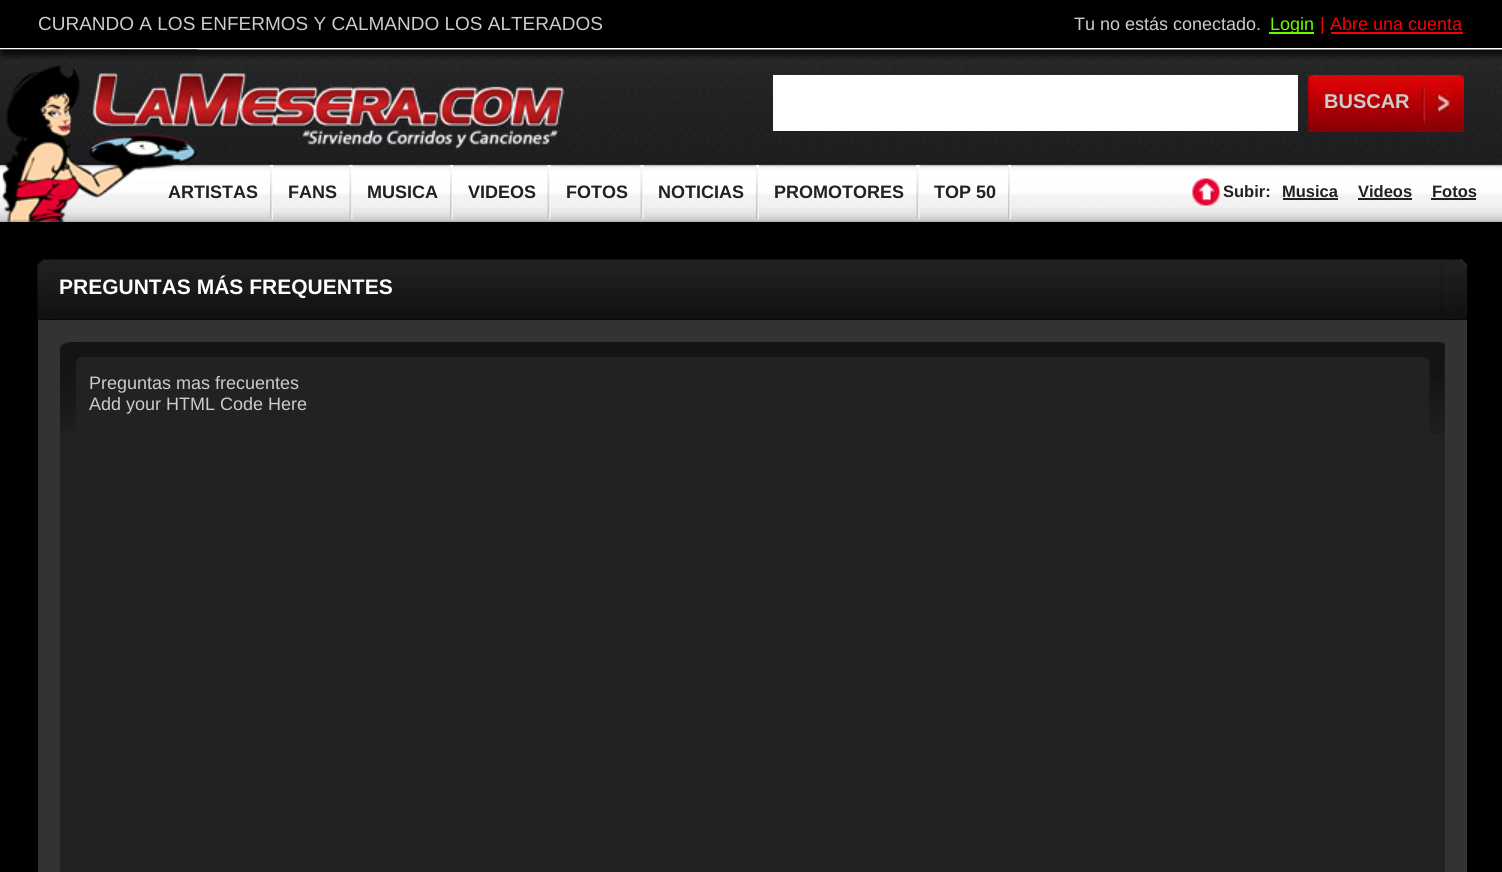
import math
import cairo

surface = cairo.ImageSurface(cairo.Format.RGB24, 1502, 872)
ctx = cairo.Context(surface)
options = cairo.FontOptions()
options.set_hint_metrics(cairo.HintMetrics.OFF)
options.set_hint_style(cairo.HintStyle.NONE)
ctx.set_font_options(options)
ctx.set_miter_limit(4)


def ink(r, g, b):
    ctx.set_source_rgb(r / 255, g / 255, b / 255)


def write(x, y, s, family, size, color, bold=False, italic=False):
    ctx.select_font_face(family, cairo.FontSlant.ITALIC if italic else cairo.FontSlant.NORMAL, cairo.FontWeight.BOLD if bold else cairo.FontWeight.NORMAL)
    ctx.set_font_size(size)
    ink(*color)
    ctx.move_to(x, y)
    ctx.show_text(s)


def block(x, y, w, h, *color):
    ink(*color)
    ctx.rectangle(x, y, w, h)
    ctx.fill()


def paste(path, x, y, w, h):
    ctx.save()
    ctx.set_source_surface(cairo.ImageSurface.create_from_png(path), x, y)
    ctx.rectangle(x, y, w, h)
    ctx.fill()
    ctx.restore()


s1 = dict(family="Liberation Sans", size=19, color=(204, 204, 204))
s2 = dict(family="Liberation Sans", size=18, color=(204, 204, 204))
s3 = dict(family="Liberation Sans", size=18, color=(102, 255, 0))
s4 = dict(family="Liberation Sans", size=18, color=(255, 0, 0))
s5 = dict(family="Liberation Sans", size=20, color=(204, 204, 204), bold=True)
s6 = dict(family="Liberation Sans", size=18, color=(33, 33, 33), bold=True)
s7 = dict(family="Liberation Sans", size=16.5, color=(33, 33, 33), bold=True)
s8 = dict(family="Liberation Sans", size=21, color=(253, 253, 253), bold=True)

ink(0, 0, 0)
ctx.paint()
block(0, 48, 1502, 2, 255, 255, 255)
write(38, 30, "CURANDO A LOS ENFERMOS Y CALMANDO LOS ALTERADOS", **s1)
write(1074, 30, "Tu no estás conectado.", **s2)
block(1269, 32, 45, 2, 102, 255, 0)
write(1270, 30, "Login", **s3)
write(1320, 30, "|", **s4)
write(1330, 30, "Abre una cuenta", **s4)
block(1331, 32, 132, 2, 255, 0, 0)
paste("pic1.png", 0, 49, 1502, 173)
paste("pic2.png", 0, 49, 198, 173)
paste("pic3.png", 91, 73, 473, 76)
block(773, 75, 525, 56, 255, 255, 255)
paste("pic4.png", 1315, 75, 149, 57)
paste("pic5.png", 1308, 75, 8, 57)
write(1324, 108, "BUSCAR", **s5)
paste("pic6.png", 270, 165, 3, 54)
write(168, 198, "ARTISTAS", **s6)
paste("pic7.png", 349, 165, 4, 54)
write(288, 198, "FANS", **s6)
paste("pic6.png", 450, 165, 3, 54)
write(367, 198, "MUSICA", **s6)
paste("pic8.png", 547, 165, 4, 54)
write(468, 198, "VIDEOS", **s6)
paste("pic8.png", 640, 165, 4, 54)
write(566, 198, "FOTOS", **s6)
paste("pic6.png", 756, 165, 3, 54)
write(658, 198, "NOTICIAS", **s6)
paste("pic9.png", 916, 165, 4, 54)
write(774, 198, "PROMOTORES", **s6)
paste("pic10.png", 1008, 165, 3, 54)
write(934, 198, "TOP 50", **s6)
paste("pic11.png", 1192, 178, 28, 28)
write(1223, 197, "Subir:", **s7)
write(1282, 197, "Musica", **s7)
block(1283, 198, 55, 2, 33, 33, 33)
write(1358, 197, "Videos", **s7)
block(1358, 198, 54, 2, 33, 33, 33)
write(1432, 197, "Fotos", **s7)
block(1431, 198, 45, 2, 33, 33, 33)
paste("pic12.png", 1441, 259, 26, 61)
paste("pic13.png", 37, 259, 25, 61)
paste("pic14.png", 60, 259, 1382, 61)
write(59, 294, "PREGUNTAS MÁS FREQUENTES", **s8)
block(38, 320, 1429, 552, 51, 51, 51)
block(60, 357, 1385, 515, 34, 34, 34)
block(81, 342, 1364, 15, 20, 20, 20)
paste("pic15.png", 60, 342, 21, 89)
paste("pic16.png", 1425, 342, 20, 92)
write(89, 389, "Preguntas mas frecuentes", **s2)
write(89, 410, "Add your HTML Code Here", **s2)
surface.write_to_png("screenshot.png")
